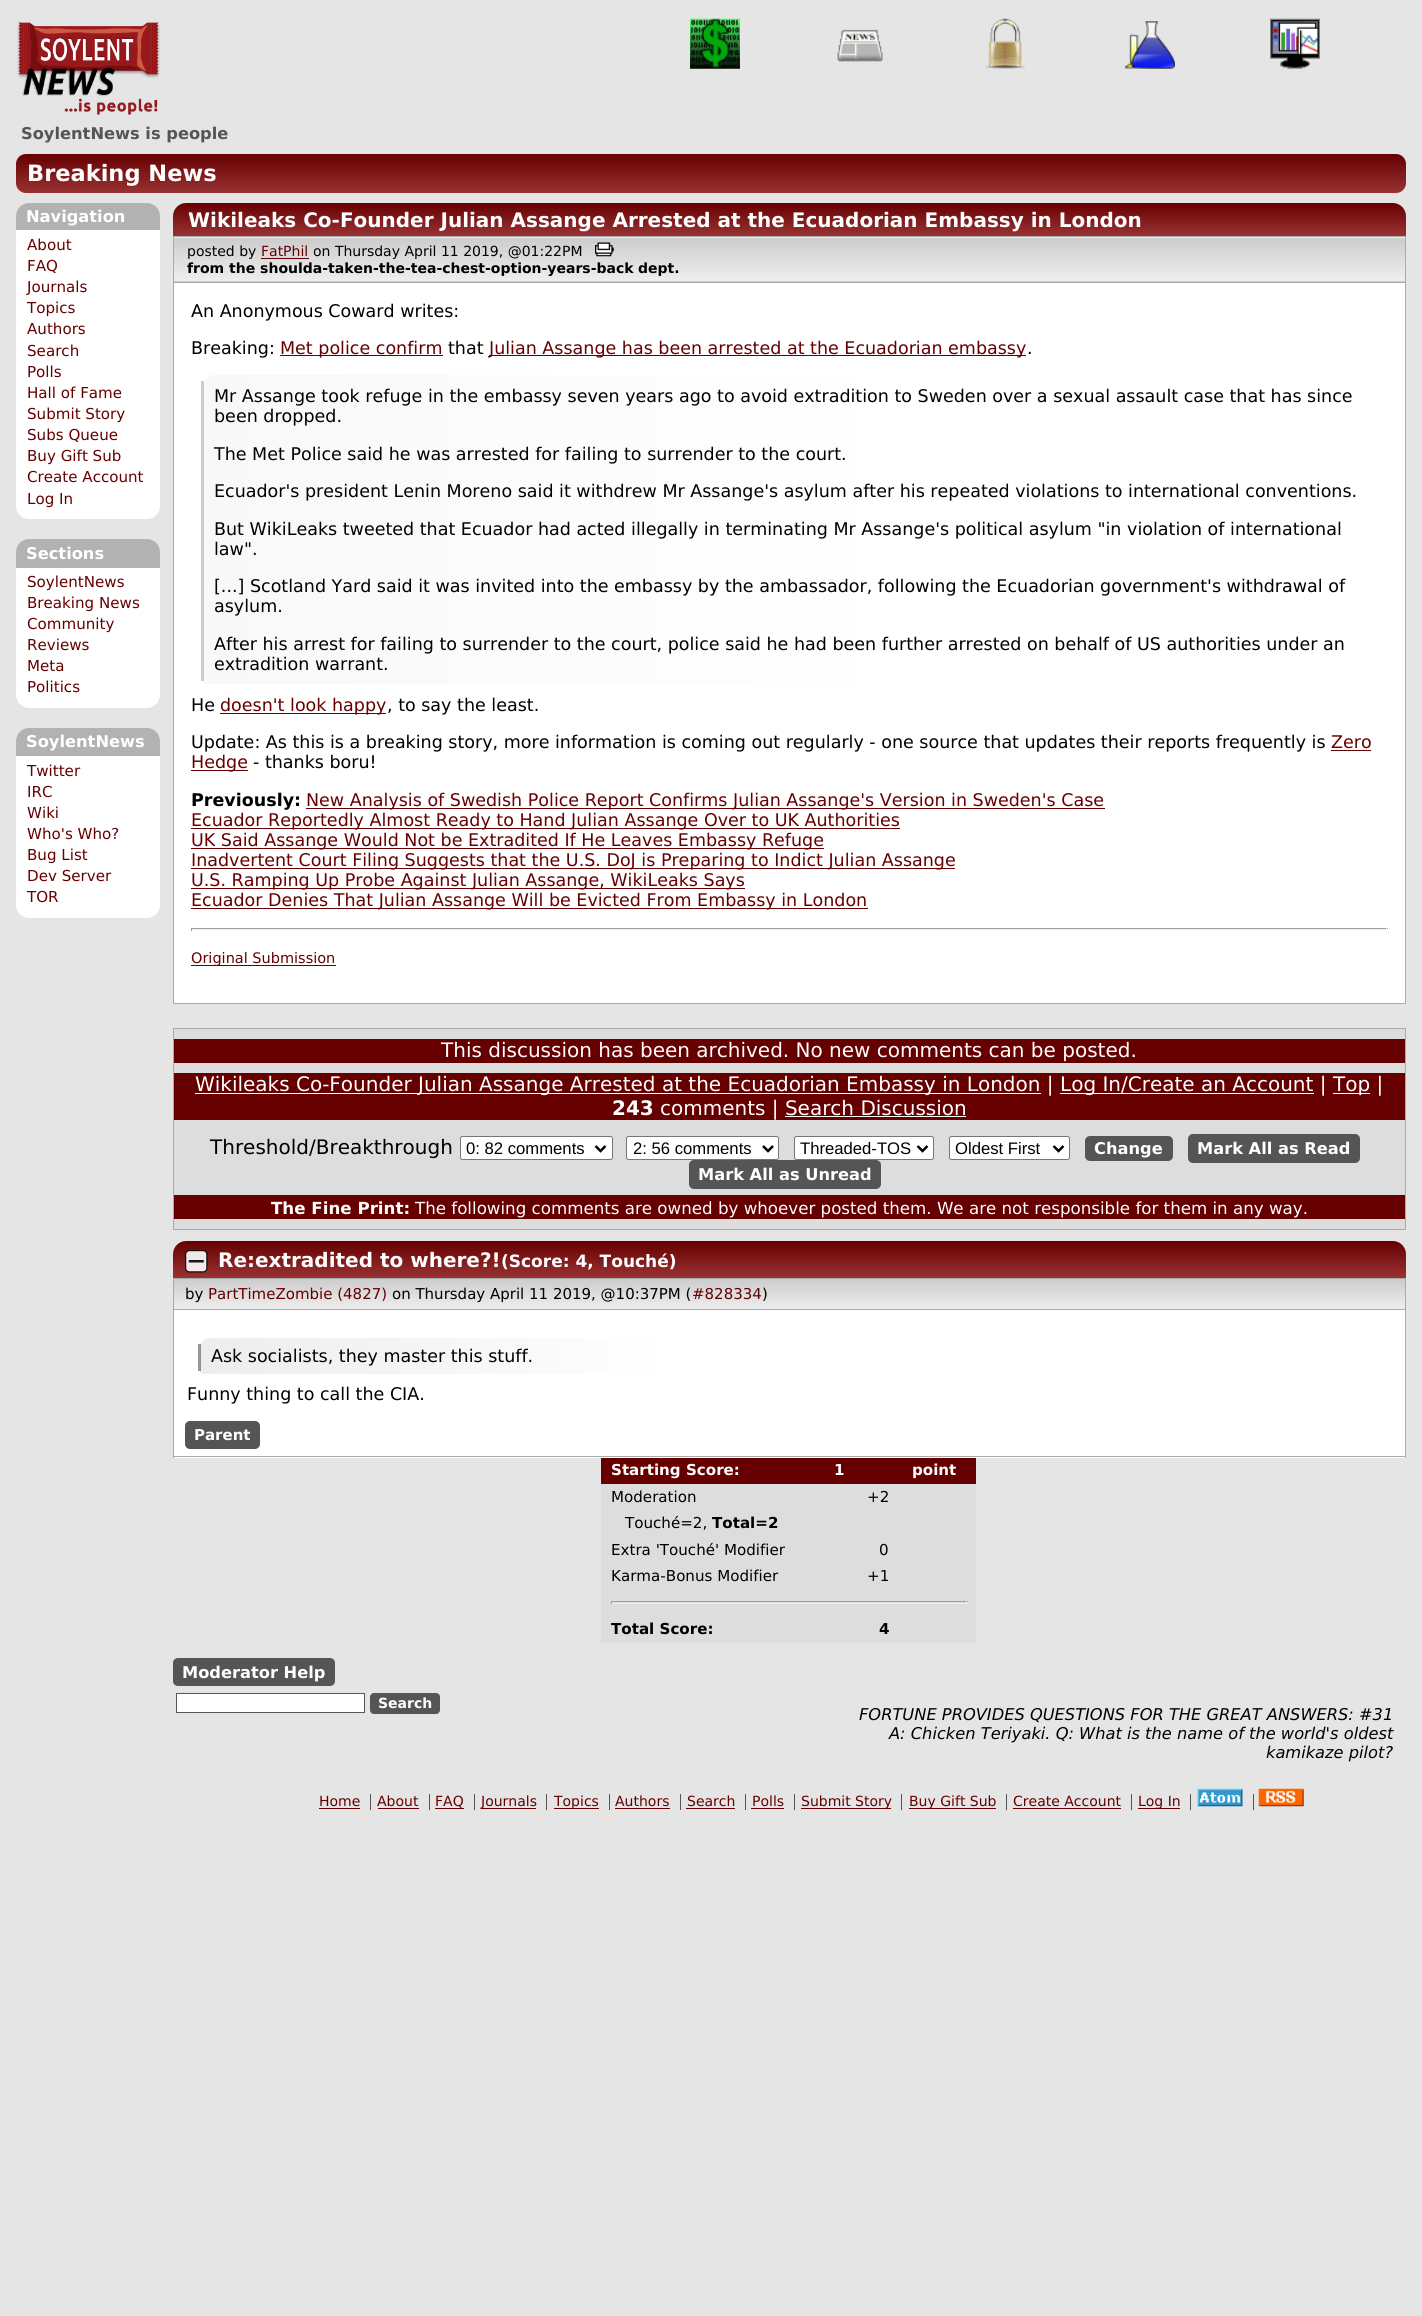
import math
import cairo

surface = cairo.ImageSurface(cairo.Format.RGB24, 1422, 2316)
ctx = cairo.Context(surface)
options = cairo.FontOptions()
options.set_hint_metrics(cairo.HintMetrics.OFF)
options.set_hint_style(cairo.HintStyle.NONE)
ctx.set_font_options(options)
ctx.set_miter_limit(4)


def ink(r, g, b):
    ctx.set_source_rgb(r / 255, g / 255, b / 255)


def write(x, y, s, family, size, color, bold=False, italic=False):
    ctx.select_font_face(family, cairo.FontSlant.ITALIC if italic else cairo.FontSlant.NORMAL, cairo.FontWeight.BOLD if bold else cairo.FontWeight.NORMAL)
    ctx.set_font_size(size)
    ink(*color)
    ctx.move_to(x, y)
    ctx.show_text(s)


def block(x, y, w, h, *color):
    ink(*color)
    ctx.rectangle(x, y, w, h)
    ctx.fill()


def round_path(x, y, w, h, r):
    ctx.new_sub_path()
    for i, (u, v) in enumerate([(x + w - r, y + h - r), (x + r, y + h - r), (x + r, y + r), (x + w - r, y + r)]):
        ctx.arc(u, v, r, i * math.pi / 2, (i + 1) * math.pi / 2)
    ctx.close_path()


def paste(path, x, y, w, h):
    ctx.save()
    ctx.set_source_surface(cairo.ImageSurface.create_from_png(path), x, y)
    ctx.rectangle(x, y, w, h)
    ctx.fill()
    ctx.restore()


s1 = dict(family="DejaVu Sans", size=16.25, color=(85, 85, 85), bold=True)
s2 = dict(family="DejaVu Sans", size=22.5, color=(255, 255, 255), bold=True)
s3 = dict(family="DejaVu Sans", size=16.25, color=(255, 255, 255), bold=True)
s4 = dict(family="DejaVu Sans", size=15.1, color=(102, 0, 0))
s5 = dict(family="DejaVu Sans", size=20, color=(255, 255, 255), bold=True)
s6 = dict(family="DejaVu Sans", size=14, color=(0, 0, 0))
s7 = dict(family="DejaVu Sans", size=14, color=(102, 0, 0))
s8 = dict(family="DejaVu Sans", size=14, color=(0, 0, 0), bold=True)
s9 = dict(family="DejaVu Sans", size=17.5, color=(0, 0, 0))
s10 = dict(family="DejaVu Sans", size=17.5, color=(102, 0, 0))
s11 = dict(family="DejaVu Sans", size=17.5, color=(0, 0, 0), bold=True)
s12 = dict(family="DejaVu Sans", size=14.5, color=(102, 0, 0))
s13 = dict(family="DejaVu Sans", size=20, color=(255, 255, 255))
s14 = dict(family="DejaVu Sans", size=20, color=(0, 0, 0))
s15 = dict(family="Liberation Sans", size=16.67, color=(0, 0, 0))
s16 = dict(family="DejaVu Sans", size=16.67, color=(255, 255, 255), bold=True)
s17 = dict(family="DejaVu Sans", size=16.67, color=(255, 255, 255))
s18 = dict(family="DejaVu Sans", size=17, color=(255, 255, 255), bold=True)
s19 = dict(family="DejaVu Sans", size=15, color=(0, 0, 0))
s20 = dict(family="DejaVu Sans", size=15, color=(102, 0, 0))
s21 = dict(family="DejaVu Sans", size=15, color=(255, 255, 255), bold=True)
s22 = dict(family="DejaVu Sans", size=15.1, color=(255, 255, 255), bold=True)
s23 = dict(family="DejaVu Sans", size=15.1, color=(0, 0, 0))
s24 = dict(family="DejaVu Sans", size=15.1, color=(0, 0, 0), bold=True)
s25 = dict(family="DejaVu Sans", size=14, color=(255, 255, 255), bold=True)
s26 = dict(family="DejaVu Sans", size=16.25, color=(0, 0, 0), italic=True)

ink(229, 229, 229)
ctx.paint()
paste("pic1.png", 17, 22, 143, 93)
paste("pic2.png", 690, 18, 50, 51)
paste("pic3.png", 837, 29, 46, 33)
paste("pic4.png", 985, 18, 41, 51)
paste("pic5.png", 1125, 21, 50, 48)
paste("pic6.png", 1270, 18, 50, 51)
write(21, 139, "SoylentNews is people", **s1)
gradient = cairo.LinearGradient(711, 154, 711, 193)
gradient.add_color_stop_rgba(0, 0.4, 0, 0, 1)
gradient.add_color_stop_rgba(1, 0.6, 0.2, 0.2, 1)
ctx.set_source(gradient)
round_path(16, 154, 1390, 39, 10)
ctx.fill()
write(27, 181, "Breaking News", **s2)
ink(178, 178, 178)
ctx.new_path()
ctx.move_to(29, 203)
ctx.line_to(147, 203)
ctx.curve_to(154, 203, 160, 209, 160, 216)
ctx.line_to(160, 230)
ctx.line_to(16, 230)
ctx.line_to(16, 216)
ctx.curve_to(16, 209, 22, 203, 29, 203)
ctx.close_path()
ctx.fill()
write(26, 222, "Navigation", **s3)
ctx.new_path()
ctx.move_to(16, 230)
ctx.line_to(160, 230)
ctx.line_to(160, 506)
ctx.curve_to(160, 513, 154, 519, 147, 519)
ctx.line_to(29, 519)
ctx.curve_to(22, 519, 16, 513, 16, 506)
ctx.close_path()
ctx.fill()
write(27, 250, "About", **s4)
write(27, 271, "FAQ", **s4)
write(27, 292, "Journals", **s4)
write(27, 313, "Topics", **s4)
write(27, 334, "Authors", **s4)
write(27, 356, "Search", **s4)
write(27, 377, "Polls", **s4)
write(27, 398, "Hall of Fame", **s4)
write(27, 419, "Submit Story", **s4)
write(27, 440, "Subs Queue", **s4)
write(27, 461, "Buy Gift Sub", **s4)
write(27, 482, "Create Account", **s4)
write(27, 504, "Log In", **s4)
ink(178, 178, 178)
ctx.new_path()
ctx.move_to(29, 539)
ctx.line_to(147, 539)
ctx.curve_to(154, 539, 160, 545, 160, 552)
ctx.line_to(160, 568)
ctx.line_to(16, 568)
ctx.line_to(16, 552)
ctx.curve_to(16, 545, 22, 539, 29, 539)
ctx.close_path()
ctx.fill()
write(26, 559, "Sections", **s3)
ctx.new_path()
ctx.move_to(16, 568)
ctx.line_to(160, 568)
ctx.line_to(160, 695)
ctx.curve_to(160, 702, 154, 708, 147, 708)
ctx.line_to(29, 708)
ctx.curve_to(22, 708, 16, 702, 16, 695)
ctx.close_path()
ctx.fill()
write(27, 587, "SoylentNews", **s4)
write(27, 608, "Breaking News", **s4)
write(27, 629, "Community", **s4)
write(27, 650, "Reviews", **s4)
write(27, 671, "Meta", **s4)
write(27, 692, "Politics", **s4)
ink(178, 178, 178)
ctx.new_path()
ctx.move_to(29, 728)
ctx.line_to(147, 728)
ctx.curve_to(154, 728, 160, 734, 160, 741)
ctx.line_to(160, 756)
ctx.line_to(16, 756)
ctx.line_to(16, 741)
ctx.curve_to(16, 734, 22, 728, 29, 728)
ctx.close_path()
ctx.fill()
write(26, 747, "SoylentNews", **s3)
ctx.new_path()
ctx.move_to(16, 756)
ctx.line_to(160, 756)
ctx.line_to(160, 905)
ctx.curve_to(160, 912, 154, 918, 147, 918)
ctx.line_to(29, 918)
ctx.curve_to(22, 918, 16, 912, 16, 905)
ctx.close_path()
ctx.fill()
write(27, 776, "Twitter", **s4)
write(27, 797, "IRC", **s4)
write(27, 818, "Wiki", **s4)
write(27, 839, "Who's Who?", **s4)
write(27, 860, "Bug List", **s4)
write(27, 881, "Dev Server", **s4)
write(27, 902, "TOR", **s4)
gradient = cairo.LinearGradient(789, 202, 789, 236)
gradient.add_color_stop_rgba(0, 0.4, 0, 0, 1)
gradient.add_color_stop_rgba(1, 0.6, 0.2, 0.2, 1)
ctx.set_source(gradient)
ctx.new_path()
ctx.move_to(186, 203)
ctx.line_to(1393, 203)
ctx.curve_to(1400, 203, 1406, 209, 1406, 216)
ctx.line_to(1406, 236)
ctx.line_to(173, 236)
ctx.line_to(173, 216)
ctx.curve_to(173, 209, 179, 203, 186, 203)
ctx.close_path()
ctx.fill()
write(188, 227, "Wikileaks Co-Founder Julian Assange Arrested at the Ecuadorian Embassy in London", **s5)
gradient = cairo.LinearGradient(789, 194, 789, 238)
gradient.add_color_stop_rgba(0, 0.8, 0.8, 0.8, 1)
gradient.add_color_stop_rgba(1, 0.933, 0.933, 0.933, 1)
ctx.set_source(gradient)
ctx.rectangle(173, 237, 1233, 1)
ctx.fill()
gradient = cairo.LinearGradient(789, 237, 789, 281)
gradient.add_color_stop_rgba(0, 0.8, 0.8, 0.8, 1)
gradient.add_color_stop_rgba(1, 0.933, 0.933, 0.933, 1)
ctx.set_source(gradient)
ctx.rectangle(174, 238, 1231, 43)
ctx.fill()
gradient = cairo.LinearGradient(789, 281, 789, 325)
gradient.add_color_stop_rgba(0, 0.8, 0.8, 0.8, 1)
gradient.add_color_stop_rgba(1, 0.933, 0.933, 0.933, 1)
ctx.set_source(gradient)
ctx.rectangle(173, 281, 1233, 1)
ctx.fill()
ctx.rectangle(173.5, 236.5, 1232, 46)
ink(170, 170, 170)
ctx.set_line_width(1)
ctx.stroke()
write(187, 256, "posted by", **s6)
write(261, 256, "FatPhil", **s7)
block(261, 258, 48, 1, 102, 0, 0)
write(313, 256, "on Thursday April 11 2019, @01:22PM", **s6)
paste("pic7.png", 595, 242, 19, 15)
write(187, 273, "from the shoulda-taken-the-tea-chest-option-years-back", **s8)
write(638, 273, "dept.", **s8)
block(174, 283, 1231, 720, 255, 255, 255)
block(1405, 283, 1, 721, 170, 170, 170)
block(173, 1003, 1233, 1, 170, 170, 170)
block(173, 283, 1, 721, 170, 170, 170)
write(191, 317, "An Anonymous Coward writes:", **s9)
write(191, 354, "Breaking:", **s9)
block(280, 355, 163, 1, 102, 0, 0)
write(280, 354, "Met police confirm", **s10)
write(448, 354, "that", **s9)
block(489, 355, 537, 1, 102, 0, 0)
write(489, 354, "Julian Assange has been arrested at the Ecuadorian embassy", **s10)
write(1027, 354, ".", **s9)
ctx.save()
ctx.new_path()
ctx.move_to(214, 375)
ctx.line_to(1378, 375)
ctx.line_to(1378, 684)
ctx.line_to(207, 684)
ctx.curve_to(203.5, 684, 201, 681.5, 201, 678)
ctx.line_to(201, 388)
ctx.curve_to(201, 381, 207, 375, 214, 375)
ctx.close_path()
ctx.clip()
gradient = cairo.LinearGradient(204, 529, 1378, 529)
gradient.add_color_stop_rgba(0, 0.973, 0.973, 0.973, 1)
gradient.add_color_stop_rgba(0.6, 1, 1, 1, 1)
ctx.set_source(gradient)
ctx.rectangle(204, 375, 1174, 309)
ctx.fill()
ctx.restore()
block(201, 381, 3, 300, 204, 204, 204)
write(214, 402, "Mr Assange took refuge in the embassy seven years ago to avoid extradition to Sweden over a sexual assault case that has since", **s9)
write(214, 422, "been dropped.", **s9)
write(214, 460, "The Met Police said he was arrested for failing to surrender to the court.", **s9)
write(214, 497, "Ecuador's president Lenin Moreno said it withdrew Mr Assange's asylum after his repeated violations to international conventions.", **s9)
write(214, 535, "But WikiLeaks tweeted that Ecuador had acted illegally in terminating Mr Assange's political asylum \"in violation of international", **s9)
write(214, 555, "law\".", **s9)
write(214, 592, "[...] Scotland Yard said it was invited into the embassy by the ambassador, following the Ecuadorian government's withdrawal of", **s9)
write(214, 612, "asylum.", **s9)
write(214, 650, "After his arrest for failing to surrender to the court, police said he had been further arrested on behalf of US authorities under an", **s9)
write(214, 670, "extradition warrant.", **s9)
write(191, 711, "He", **s9)
block(220, 713, 166, 1, 102, 0, 0)
write(220, 711, "doesn't look happy", **s10)
write(387, 711, ", to say the least.", **s9)
write(191, 748, "Update: As this is a breaking story, more information is coming out regularly - one source that updates their reports frequently is", **s9)
write(1331, 748, "Zero", **s10)
block(1331, 750, 40, 1, 102, 0, 0)
block(191, 770, 57, 1, 102, 0, 0)
write(191, 768, "Hedge", **s10)
write(253, 768, "- thanks boru!", **s9)
write(191, 806, "Previously:", **s11)
block(306, 808, 799, 1, 102, 0, 0)
write(306, 806, "New Analysis of Swedish Police Report Confirms Julian Assange's Version in Sweden's Case", **s10)
block(191, 828, 709, 1, 102, 0, 0)
write(191, 826, "Ecuador Reportedly Almost Ready to Hand Julian Assange Over to UK Authorities", **s10)
block(191, 848, 633, 1, 102, 0, 0)
write(191, 846, "UK Said Assange Would Not be Extradited If He Leaves Embassy Refuge", **s10)
block(191, 868, 764, 1, 102, 0, 0)
write(191, 866, "Inadvertent Court Filing Suggests that the U.S. DoJ is Preparing to Indict Julian Assange", **s10)
block(191, 888, 554, 1, 102, 0, 0)
write(191, 886, "U.S. Ramping Up Probe Against Julian Assange, WikiLeaks Says", **s10)
block(191, 908, 677, 1, 102, 0, 0)
write(191, 906, "Ecuador Denies That Julian Assange Will be Evicted From Embassy in London", **s10)
block(191, 928, 1197, 1, 159, 159, 159)
block(1386, 928, 1, 3, 238, 238, 238)
block(191, 929, 1197, 1, 238, 238, 238)
block(191, 928, 1, 3, 159, 159, 159)
block(191, 965, 145, 1, 102, 0, 0)
write(191, 963, "Original Submission", **s12)
ink(221, 221, 221)
ctx.rectangle(173.5, 1028.5, 1232, 201)
ctx.fill_preserve()
ink(170, 170, 170)
ctx.stroke()
block(174, 1039, 1231, 24, 102, 0, 0)
write(441, 1057, "This discussion has been archived. No new comments can be posted.", **s13)
block(174, 1073, 1231, 47, 102, 0, 0)
block(195, 1093, 846, 1, 255, 255, 255)
write(195, 1091, "Wikileaks Co-Founder Julian Assange Arrested at the Ecuadorian Embassy in London |", **s13)
block(1060, 1093, 254, 1, 255, 255, 255)
write(1060, 1091, "Log In/Create an Account |", **s13)
block(1333, 1093, 37, 1, 255, 255, 255)
write(1333, 1091, "Top |", **s13)
write(612, 1115, "243", **s5)
write(660, 1115, "comments | Search Discussion", **s13)
block(785, 1116, 181, 1, 255, 255, 255)
write(210, 1154, "Threshold/Breakthrough", **s14)
ink(255, 255, 255)
round_path(460.5, 1136.5, 152, 23, 2)
ctx.fill_preserve()
ink(118, 118, 118)
ctx.stroke()
ctx.new_path()
ctx.move_to(595.5, 1146)
ctx.line_to(600.5, 1151)
ctx.line_to(605.5, 1146)
ink(0, 0, 0)
ctx.set_line_width(2.5)
ctx.stroke()
write(466, 1154, "0: 82 comments", **s15)
ink(255, 255, 255)
round_path(626.5, 1136.5, 152, 23, 2)
ctx.fill_preserve()
ink(118, 118, 118)
ctx.set_line_width(1)
ctx.stroke()
ctx.new_path()
ctx.move_to(763, 1146)
ctx.line_to(768, 1151)
ctx.line_to(773, 1146)
ink(0, 0, 0)
ctx.set_line_width(2.5)
ctx.stroke()
write(633, 1154, "2: 56 comments", **s15)
ink(255, 255, 255)
round_path(794.5, 1136.5, 139, 23, 2)
ctx.fill_preserve()
ink(118, 118, 118)
ctx.set_line_width(1)
ctx.stroke()
ctx.new_path()
ctx.move_to(917.5, 1146)
ctx.line_to(922.5, 1151)
ctx.line_to(927.5, 1146)
ink(0, 0, 0)
ctx.set_line_width(2.5)
ctx.stroke()
write(800, 1154, "Threaded-TOS", **s15)
ink(255, 255, 255)
round_path(949.5, 1136.5, 120, 23, 2)
ctx.fill_preserve()
ink(118, 118, 118)
ctx.set_line_width(1)
ctx.stroke()
ctx.new_path()
ctx.move_to(1053.5, 1146)
ctx.line_to(1058.5, 1151)
ctx.line_to(1063.5, 1146)
ink(0, 0, 0)
ctx.set_line_width(2.5)
ctx.stroke()
write(955, 1154, "Oldest First", **s15)
ink(85, 85, 85)
round_path(1085, 1136, 88, 25, 5)
ctx.fill()
write(1094, 1154, "Change", **s3)
ink(85, 85, 85)
round_path(1188, 1134, 172, 29, 5)
ctx.fill()
write(1197, 1154, "Mark All as Read", **s3)
ink(85, 85, 85)
round_path(689, 1160, 192, 29, 5)
ctx.fill()
write(698, 1180, "Mark All as Unread", **s3)
block(174, 1195, 1231, 24, 102, 0, 0)
write(271, 1214, "The Fine Print:", **s16)
write(415, 1214, "The following comments are owned by whoever posted them. We are not responsible for them in any way.", **s17)
gradient = cairo.LinearGradient(789, 1241, 789, 1278)
gradient.add_color_stop_rgba(0, 0.4, 0, 0, 1)
gradient.add_color_stop_rgba(1, 0.6, 0.2, 0.2, 1)
ctx.set_source(gradient)
ctx.new_path()
ctx.move_to(186, 1241)
ctx.line_to(1393, 1241)
ctx.curve_to(1400, 1241, 1406, 1247, 1406, 1254)
ctx.line_to(1406, 1278)
ctx.line_to(173, 1278)
ctx.line_to(173, 1254)
ctx.curve_to(173, 1247, 179, 1241, 186, 1241)
ctx.close_path()
ctx.fill()
paste("pic8.png", 185, 1250, 23, 23)
write(218, 1267, "Re:extradited to where?!", **s5)
write(501, 1267, "(Score: 4, Touché)", **s18)
gradient = cairo.LinearGradient(789, 1279, 789, 1309)
gradient.add_color_stop_rgba(0, 0.8, 0.8, 0.8, 1)
gradient.add_color_stop_rgba(1, 0.933, 0.933, 0.933, 1)
ctx.set_source(gradient)
ctx.rectangle(174, 1279, 1231, 30)
ctx.fill()
ctx.rectangle(173.5, 1278.5, 1232, 31)
ink(170, 170, 170)
ctx.set_line_width(1)
ctx.stroke()
write(185, 1299, "by", **s19)
write(208, 1299, "PartTimeZombie (4827)", **s20)
write(392, 1299, "on Thursday April 11 2019, @10:37PM (", **s19)
write(692, 1299, "#828334", **s20)
write(762, 1299, ")", **s19)
block(174, 1310, 1231, 148, 255, 255, 255)
block(198, 1344, 2, 27, 153, 153, 153)
block(1405, 1310, 1, 148, 170, 170, 170)
block(173, 1310, 1, 104, 170, 170, 170)
ctx.save()
ctx.new_path()
ctx.move_to(211, 1338)
ctx.line_to(1381, 1338)
ctx.line_to(1381, 1374)
ctx.line_to(204, 1374)
ctx.curve_to(200.5, 1374, 198, 1371.5, 198, 1368)
ctx.line_to(198, 1351)
ctx.curve_to(198, 1344, 204, 1338, 211, 1338)
ctx.close_path()
ctx.clip()
gradient = cairo.LinearGradient(200, 1356, 1381, 1356)
gradient.add_color_stop_rgba(0, 0.929, 0.929, 0.929, 1)
gradient.add_color_stop_rgba(0.4, 1, 1, 1, 1)
ctx.set_source(gradient)
ctx.rectangle(200, 1338, 1181, 36)
ctx.fill()
ctx.restore()
gradient = cairo.LinearGradient(200, 1356, 1381, 1356)
gradient.add_color_stop_rgba(0, 0.557, 0.557, 0.557, 1)
gradient.add_color_stop_rgba(0.4, 0.6, 0.6, 0.6, 1)
ctx.set_source(gradient)
ctx.rectangle(200, 1344, 1, 27)
ctx.fill()
write(211, 1362, "Ask socialists, they master this stuff.", **s9)
write(187, 1400, "Funny thing to call the CIA.", **s9)
block(173, 1456, 1233, 1, 170, 170, 170)
block(173, 1414, 1, 44, 170, 170, 170)
ink(85, 85, 85)
round_path(185, 1421, 75, 28, 5)
ctx.fill()
write(194, 1440, "Parent", **s21)
block(601, 1458, 375, 26, 102, 0, 0)
write(611, 1475, "Starting Score:", **s22)
write(834, 1475, "1", **s22)
write(912, 1475, "point", **s22)
block(601, 1484, 375, 159, 221, 221, 221)
write(611, 1502, "Moderation", **s23)
write(867, 1502, "+2", **s23)
write(625, 1528, "Touché=2,", **s23)
write(712, 1528, "Total=2", **s24)
write(611, 1555, "Extra 'Touché' Modifier", **s23)
write(879, 1555, "0", **s23)
write(611, 1581, "Karma-Bonus Modifier", **s23)
write(867, 1581, "+1", **s23)
block(611, 1601, 357, 1, 159, 159, 159)
block(966, 1601, 1, 3, 238, 238, 238)
block(611, 1603, 357, 1, 238, 238, 238)
block(611, 1601, 1, 3, 159, 159, 159)
write(611, 1634, "Total Score:", **s24)
write(879, 1634, "4", **s24)
ink(85, 85, 85)
round_path(173, 1658, 162, 28, 5)
ctx.fill()
write(182, 1678, "Moderator Help", **s3)
ctx.rectangle(176.5, 1693.5, 188, 19)
ctx.fill_preserve()
ink(85, 85, 85)
ctx.stroke()
round_path(370, 1693, 70, 21, 4)
ctx.fill()
write(378, 1708, "Search", **s25)
write(859, 1720, "FORTUNE PROVIDES QUESTIONS FOR THE GREAT ANSWERS: #31", **s26)
write(889, 1739, "A: Chicken Teriyaki. Q: What is the name of the world's oldest", **s26)
write(1266, 1758, "kamikaze pilot?", **s26)
write(319, 1806, "Home", **s7)
block(319, 1808, 41, 1, 102, 0, 0)
write(377, 1806, "About", **s7)
block(370, 1794, 1, 16, 85, 85, 85)
block(378, 1808, 41, 1, 102, 0, 0)
write(435, 1806, "FAQ", **s7)
block(429, 1794, 1, 16, 85, 85, 85)
block(435, 1808, 29, 1, 102, 0, 0)
block(481, 1808, 55, 1, 102, 0, 0)
write(481, 1806, "Journals", **s7)
block(474, 1794, 1, 16, 85, 85, 85)
block(554, 1808, 45, 1, 102, 0, 0)
write(554, 1806, "Topics", **s7)
block(546, 1794, 1, 16, 85, 85, 85)
write(615, 1806, "Authors", **s7)
block(609, 1794, 1, 16, 85, 85, 85)
block(615, 1808, 55, 1, 102, 0, 0)
write(687, 1806, "Search", **s7)
block(680, 1794, 1, 16, 85, 85, 85)
block(686, 1808, 49, 1, 102, 0, 0)
write(752, 1806, "Polls", **s7)
block(745, 1794, 1, 16, 85, 85, 85)
block(751, 1808, 33, 1, 102, 0, 0)
block(801, 1808, 90, 1, 102, 0, 0)
write(801, 1806, "Submit Story", **s7)
block(794, 1794, 1, 16, 85, 85, 85)
block(909, 1808, 87, 1, 102, 0, 0)
write(909, 1806, "Buy Gift Sub", **s7)
block(901, 1794, 1, 16, 85, 85, 85)
write(1013, 1806, "Create Account", **s7)
block(1006, 1794, 1, 16, 85, 85, 85)
block(1013, 1808, 108, 1, 102, 0, 0)
block(1138, 1808, 42, 1, 102, 0, 0)
write(1138, 1806, "Log In", **s7)
block(1131, 1794, 1, 16, 85, 85, 85)
block(1190, 1794, 1, 16, 85, 85, 85)
paste("pic9.png", 1197, 1788, 46, 19)
block(1253, 1794, 1, 16, 85, 85, 85)
paste("pic10.png", 1258, 1788, 46, 19)
surface.write_to_png("screenshot.png")
